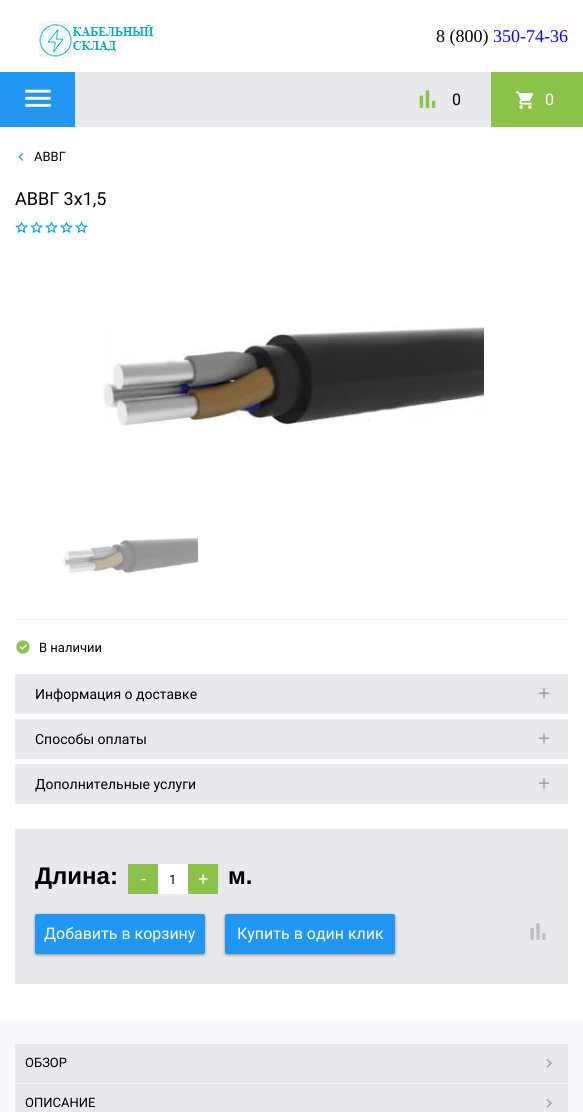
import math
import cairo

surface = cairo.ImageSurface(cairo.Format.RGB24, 583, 1112)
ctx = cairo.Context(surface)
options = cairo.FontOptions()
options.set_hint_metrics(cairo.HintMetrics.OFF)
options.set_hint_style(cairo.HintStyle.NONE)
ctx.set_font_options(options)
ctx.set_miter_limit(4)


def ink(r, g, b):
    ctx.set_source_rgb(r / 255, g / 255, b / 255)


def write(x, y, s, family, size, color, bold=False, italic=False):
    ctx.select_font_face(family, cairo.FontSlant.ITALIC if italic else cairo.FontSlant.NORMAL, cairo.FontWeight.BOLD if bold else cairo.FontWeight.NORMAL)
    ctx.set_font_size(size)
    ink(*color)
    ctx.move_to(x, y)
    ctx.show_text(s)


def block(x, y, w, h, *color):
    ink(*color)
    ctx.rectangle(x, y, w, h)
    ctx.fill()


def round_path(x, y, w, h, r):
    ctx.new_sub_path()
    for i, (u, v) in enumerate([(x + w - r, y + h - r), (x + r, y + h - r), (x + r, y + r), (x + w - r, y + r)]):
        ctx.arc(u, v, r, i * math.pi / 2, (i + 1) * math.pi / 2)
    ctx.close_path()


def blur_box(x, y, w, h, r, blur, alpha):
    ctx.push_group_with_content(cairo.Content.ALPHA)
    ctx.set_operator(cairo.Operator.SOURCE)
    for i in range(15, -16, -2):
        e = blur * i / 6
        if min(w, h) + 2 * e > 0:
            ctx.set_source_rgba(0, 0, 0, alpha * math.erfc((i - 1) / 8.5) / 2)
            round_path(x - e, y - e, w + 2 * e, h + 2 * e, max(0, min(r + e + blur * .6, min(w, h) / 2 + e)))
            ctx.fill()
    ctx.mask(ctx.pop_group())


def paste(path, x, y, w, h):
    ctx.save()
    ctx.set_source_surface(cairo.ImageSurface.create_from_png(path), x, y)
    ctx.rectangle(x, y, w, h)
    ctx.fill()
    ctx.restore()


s1 = dict(family="Liberation Serif", size=18, color=(0, 0, 0))
s2 = dict(family="Liberation Serif", size=18, color=(0, 0, 255))
s3 = dict(family="Roboto", size=16, color=(0, 0, 0))
s4 = dict(family="Roboto", size=16, color=(255, 255, 255))
s5 = dict(family="Roboto", size=13, color=(0, 0, 0))
s6 = dict(family="Roboto", size=18, color=(0, 0, 0))
s7 = dict(family="Roboto", size=14, color=(0, 0, 0))
s8 = dict(family="Liberation Sans", size=24, color=(0, 0, 0), bold=True)
s9 = dict(family="Roboto", size=18, color=(255, 255, 255))

ink(255, 255, 255)
ctx.paint()
paste("pic1.png", 39, 21, 115, 37)
write(436, 42, "8 (800)", **s1)
write(493, 42, "350-74-36", **s2)
block(75, 72, 416, 55, 232, 233, 236)
block(0, 72, 75, 55, 33, 150, 243)
paste("pic2.png", 25, 89, 26, 18)
paste("pic3.png", 419, 90, 17, 18)
write(452, 105, "0", **s3)
block(491, 72, 92, 55, 139, 195, 74)
paste("pic4.png", 515, 91, 19, 18)
write(545, 105, "0", **s4)
paste("pic5.png", 18, 153, 6, 8)
write(34, 161, "АВВГ", **s5)
write(15, 205, "АВВГ 3х1,5", **s6)
paste("pic6.png", 15, 221, 13, 12)
paste("pic6.png", 30, 221, 13, 12)
paste("pic6.png", 45, 221, 13, 12)
paste("pic6.png", 60, 221, 13, 12)
paste("pic6.png", 75, 221, 13, 12)
paste("pic7.png", 102, 326, 382, 103)
paste("pic8.png", 62, 537, 136, 36)
block(15, 619, 553, 1, 238, 238, 238)
paste("pic9.png", 16, 640, 14, 14)
write(39, 652, "В наличии", **s5)
block(15, 674, 553, 40, 232, 233, 236)
write(35, 699, "Информация о доставке", **s7)
paste("pic10.png", 538, 688, 12, 11)
block(15, 719, 553, 40, 232, 233, 236)
write(35, 744, "Способы оплаты", **s7)
paste("pic10.png", 538, 733, 12, 11)
block(15, 764, 553, 40, 232, 233, 236)
write(35, 789, "Дополнительные услуги", **s7)
paste("pic10.png", 538, 778, 12, 11)
block(15, 829, 553, 155, 232, 233, 236)
write(35, 884, "Длина:", **s8)
block(128, 864, 30, 30, 139, 195, 74)
write(141, 885, "-", **s9)
block(158, 864, 30, 30, 255, 255, 255)
write(169, 884, "1", **s5)
block(188, 864, 30, 30, 139, 195, 74)
write(198, 885, "+", **s9)
write(228, 884, "м.", **s8)
ink(0, 0, 0)
blur_box(35, 915, 170, 40, 2, 1.5, 0.4)
ink(33, 150, 243)
round_path(35, 914, 170, 40, 2)
ctx.fill()
write(44, 939, "Добавить в корзину", **s4)
ink(0, 0, 0)
blur_box(225, 915, 170, 40, 2, 1.5, 0.4)
ink(33, 150, 243)
round_path(225, 914, 170, 40, 2)
ctx.fill()
write(237, 939, "Купить в один клик", **s4)
paste("pic11.png", 530, 923, 16, 17)
block(0, 1019, 583, 93, 247, 248, 252)
block(15, 1044, 553, 39, 232, 233, 236)
write(25, 1067, "ОБЗОР", **s5)
paste("pic12.png", 546, 1058, 6, 10)
block(15, 1084, 553, 28, 232, 233, 236)
write(25, 1107, "ОПИСАНИЕ", **s5)
paste("pic12.png", 546, 1098, 6, 10)
surface.write_to_png("screenshot.png")
